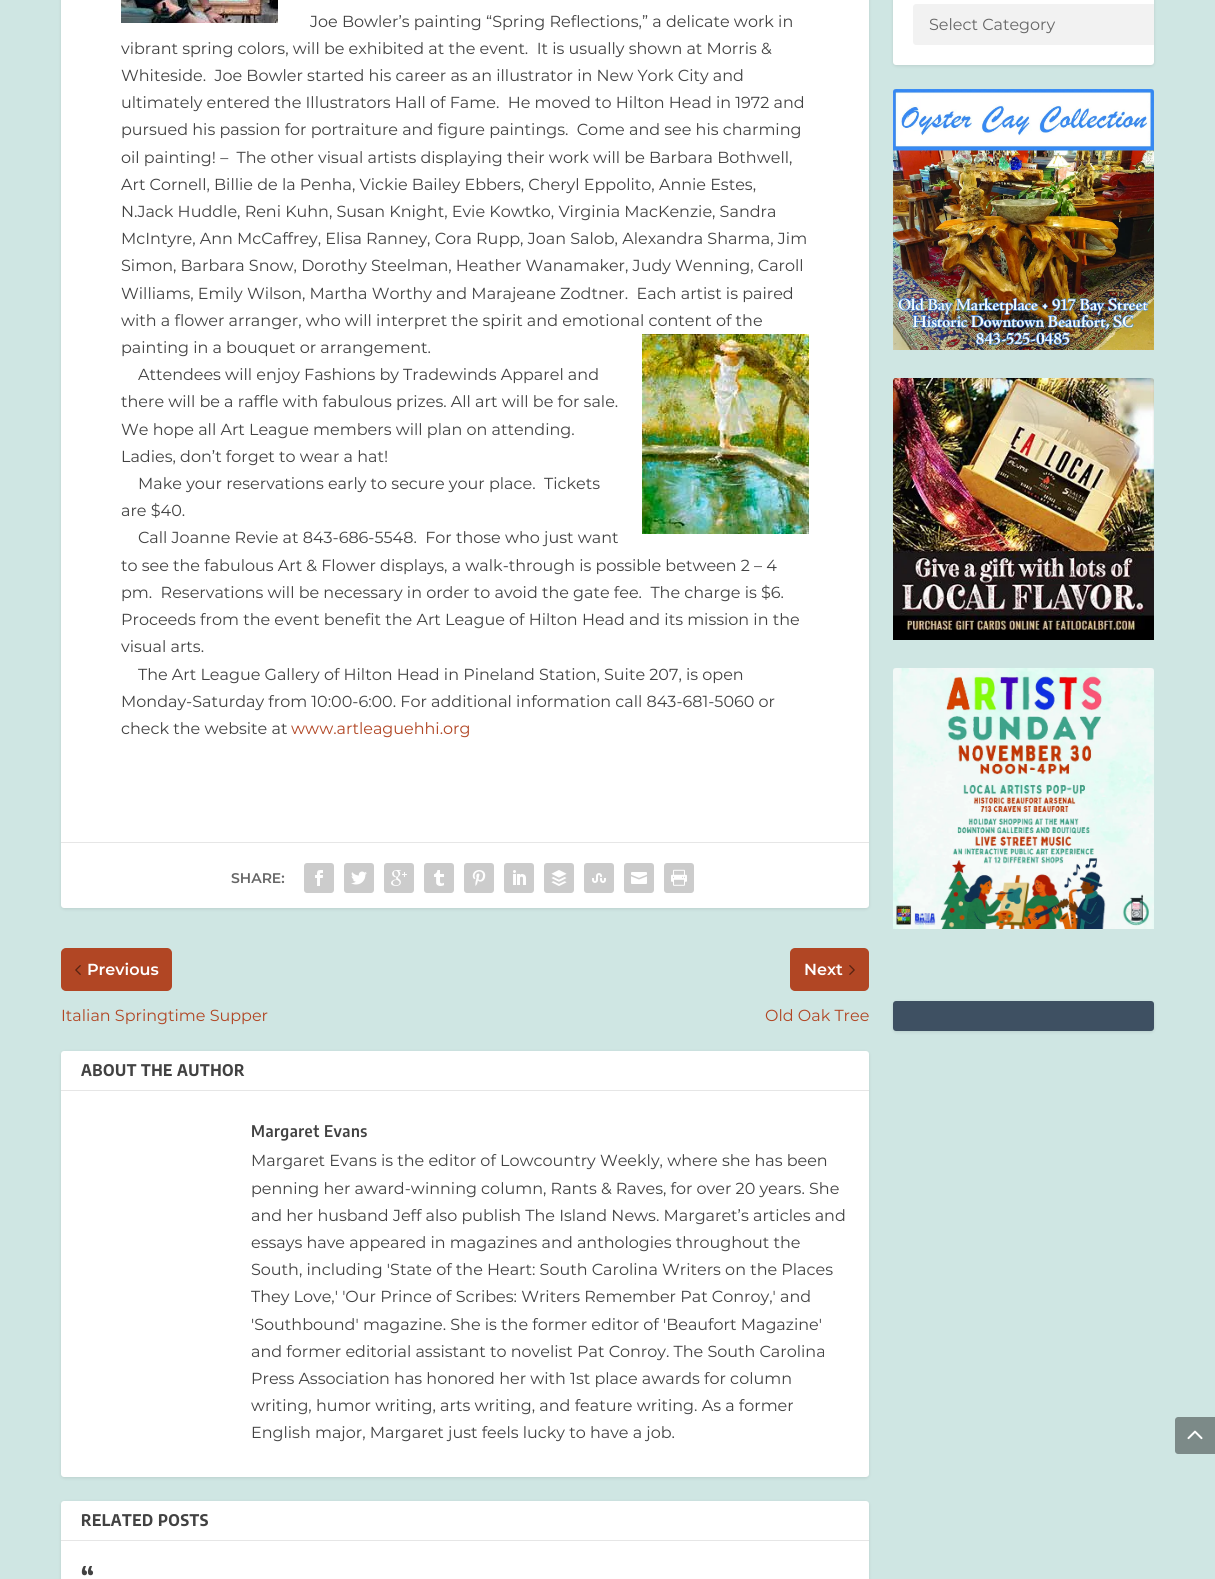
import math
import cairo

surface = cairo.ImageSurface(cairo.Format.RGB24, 1215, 1579)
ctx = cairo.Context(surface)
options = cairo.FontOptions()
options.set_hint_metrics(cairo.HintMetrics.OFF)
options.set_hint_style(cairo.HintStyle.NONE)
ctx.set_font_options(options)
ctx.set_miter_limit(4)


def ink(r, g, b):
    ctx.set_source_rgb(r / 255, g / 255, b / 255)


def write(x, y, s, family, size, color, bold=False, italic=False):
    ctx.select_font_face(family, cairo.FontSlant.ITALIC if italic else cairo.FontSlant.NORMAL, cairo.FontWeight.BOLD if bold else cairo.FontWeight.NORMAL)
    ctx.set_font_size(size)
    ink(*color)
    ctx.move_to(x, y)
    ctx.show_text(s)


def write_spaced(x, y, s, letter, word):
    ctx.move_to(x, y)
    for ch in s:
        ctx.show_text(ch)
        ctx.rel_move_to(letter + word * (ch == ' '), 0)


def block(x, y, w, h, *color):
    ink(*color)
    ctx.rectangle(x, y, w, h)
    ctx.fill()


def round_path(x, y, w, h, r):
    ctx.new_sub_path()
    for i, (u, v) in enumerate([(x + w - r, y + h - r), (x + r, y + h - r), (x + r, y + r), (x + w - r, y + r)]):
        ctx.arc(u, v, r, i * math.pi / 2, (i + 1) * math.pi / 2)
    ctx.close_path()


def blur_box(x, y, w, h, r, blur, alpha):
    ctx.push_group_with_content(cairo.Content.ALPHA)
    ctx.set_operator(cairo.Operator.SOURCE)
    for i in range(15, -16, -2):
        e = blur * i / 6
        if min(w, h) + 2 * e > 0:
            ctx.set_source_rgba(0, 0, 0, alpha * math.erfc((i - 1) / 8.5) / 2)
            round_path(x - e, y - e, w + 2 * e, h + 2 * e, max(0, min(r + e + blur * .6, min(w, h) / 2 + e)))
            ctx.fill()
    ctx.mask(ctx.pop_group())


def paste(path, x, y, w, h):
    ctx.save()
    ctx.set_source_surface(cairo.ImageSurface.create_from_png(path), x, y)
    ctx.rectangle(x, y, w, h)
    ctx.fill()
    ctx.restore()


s1 = dict(family="Montserrat", size=16, color=(66, 66, 66))
s2 = dict(family="Montserrat", size=16, color=(177, 70, 36))
s3 = dict(family="Montserrat SemiBold", size=14, color=(102, 102, 102))
s4 = dict(family="Montserrat SemiBold", size=16, color=(255, 255, 255))
s5 = dict(family="Montserrat", size=16, color=(102, 102, 102))

ink(207, 230, 227)
ctx.paint()
ink(0, 0, 0)
blur_box(61, -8, 808, 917, 3, 1.5, 0.1)
ink(255, 255, 255)
round_path(61, -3, 808, 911, 3)
ctx.fill()
paste("pic1.png", 121, 0, 157, 23)
write(310, 27, "Joe Bowler’s painting “Spring Reflections,” a delicate work in", **s1)
write(121, 54, "vibrant spring colors, will be exhibited at the event.  It is usually shown at Morris &", **s1)
write(121, 81, "Whiteside.  Joe Bowler started his career as an illustrator in New York City and", **s1)
write(121, 108, "ultimately entered the Illustrators Hall of Fame.  He moved to Hilton Head in 1972 and", **s1)
write(121, 135, "pursued his passion for portraiture and figure paintings.  Come and see his charming", **s1)
write(121, 163, "oil painting! –  The other visual artists displaying their work will be Barbara Bothwell,", **s1)
write(121, 190, "Art Cornell, Billie de la Penha, Vickie Bailey Ebbers, Cheryl Eppolito, Annie Estes,", **s1)
write(121, 217, "N.Jack Huddle, Reni Kuhn, Susan Knight, Evie Kowtko, Virginia MacKenzie, Sandra", **s1)
write(121, 244, "McIntyre, Ann McCaffrey, Elisa Ranney, Cora Rupp, Joan Salob, Alexandra Sharma, Jim", **s1)
write(121, 271, "Simon, Barbara Snow, Dorothy Steelman, Heather Wanamaker, Judy Wenning, Caroll", **s1)
write(121, 299, "Williams, Emily Wilson, Martha Worthy and Marajeane Zodtner.  Each artist is paired", **s1)
write(121, 326, "with a flower arranger, who will interpret the spirit and emotional content of the", **s1)
write(121, 353, "painting in a bouquet or arrangement.", **s1)
paste("pic2.png", 642, 334, 167, 200)
write(138, 380, "Attendees will enjoy Fashions by Tradewinds Apparel and", **s1)
write(121, 407, "there will be a raffle with fabulous prizes. All art will be for sale.", **s1)
write(121, 435, "We hope all Art League members will plan on attending.", **s1)
write(121, 462, "Ladies, don’t forget to wear a hat!", **s1)
write(138, 489, "Make your reservations early to secure your place.  Tickets", **s1)
write(121, 516, "are $40.", **s1)
write(138, 543, "Call Joanne Revie at 843-686-5548.  For those who just want", **s1)
write(121, 571, "to see the fabulous Art & Flower displays, a walk-through is possible between 2 – 4", **s1)
write(121, 598, "pm.  Reservations will be necessary in order to avoid the gate fee.  The charge is $6.", **s1)
write(121, 625, "Proceeds from the event benefit the Art League of Hilton Head and its mission in the", **s1)
write(121, 652, "visual arts.", **s1)
write(138, 680, "The Art League Gallery of Hilton Head in Pineland Station, Suite 207, is open", **s1)
write(121, 707, "Monday-Saturday from 10:00-6:00. For additional information call 843-681-5060 or", **s1)
write(121, 734, "check the website at", **s1)
write(291, 734, "www.artleaguehhi.org", **s2)
block(61, 842, 808, 1, 230, 230, 230)
write(231, 883, "SHARE:", **s3)
ink(204, 204, 204)
round_path(304, 863, 30, 30, 3)
ctx.fill()
paste("pic3.png", 315, 870, 8, 16)
round_path(344, 863, 30, 30, 3)
ctx.fill()
paste("pic4.png", 351, 871, 16, 14)
round_path(384, 863, 30, 30, 3)
ctx.fill()
paste("pic5.png", 391, 870, 16, 16)
round_path(424, 863, 30, 30, 3)
ctx.fill()
paste("pic6.png", 434, 870, 10, 16)
round_path(464, 863, 30, 30, 3)
ctx.fill()
paste("pic7.png", 472, 870, 14, 16)
round_path(504, 863, 30, 30, 3)
ctx.fill()
paste("pic8.png", 513, 870, 13, 15)
round_path(544, 863, 30, 30, 3)
ctx.fill()
paste("pic9.png", 551, 870, 16, 16)
round_path(584, 863, 30, 30, 3)
ctx.fill()
paste("pic10.png", 592, 873, 14, 10)
round_path(624, 863, 30, 30, 3)
ctx.fill()
paste("pic11.png", 631, 872, 16, 12)
round_path(664, 863, 30, 30, 3)
ctx.fill()
paste("pic12.png", 671, 869, 16, 17)
ink(177, 70, 36)
round_path(62, 949, 109, 41, 4)
ctx.fill_preserve()
ctx.stroke()
paste("pic13.png", 75, 965, 6, 10)
write(87, 975, "Previous", **s4)
write(61, 1021, "Italian Springtime Supper", **s2)
round_path(791, 949, 77, 41, 4)
ctx.fill_preserve()
ctx.stroke()
write(804, 975, "Next", **s4)
paste("pic14.png", 849, 965, 6, 10)
write(765, 1021, "Old Oak Tree", **s2)
ink(0, 0, 0)
blur_box(61, 1052, 808, 426, 3, 1.5, 0.1)
ink(255, 255, 255)
round_path(61, 1051, 808, 426, 3)
ctx.fill()
block(61, 1090, 808, 1, 230, 230, 230)
ctx.select_font_face("Encode Sans Semi Condensed", cairo.FontSlant.NORMAL, cairo.FontWeight.BOLD)
ink(66, 66, 66)
write_spaced(81, 1076, "ABOUT THE AUTHOR", 0.5, 0)
ctx.select_font_face("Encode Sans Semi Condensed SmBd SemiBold")
write_spaced(251, 1137, "Margaret Evans", 0.5, 0)
write(251, 1166, "Margaret Evans is the editor of Lowcountry Weekly, where she has been", **s1)
write(251, 1194, "penning her award-winning column, Rants & Raves, for over 20 years. She", **s1)
write(251, 1221, "and her husband Jeff also publish The Island News. Margaret’s articles and", **s1)
write(251, 1248, "essays have appeared in magazines and anthologies throughout the", **s1)
write(251, 1275, "South, including 'State of the Heart: South Carolina Writers on the Places", **s1)
write(251, 1302, "They Love,' 'Our Prince of Scribes: Writers Remember Pat Conroy,' and", **s1)
write(251, 1330, "'Southbound' magazine. She is the former editor of 'Beaufort Magazine'", **s1)
write(251, 1357, "and former editorial assistant to novelist Pat Conroy. The South Carolina", **s1)
write(251, 1384, "Press Association has honored her with 1st place awards for column", **s1)
write(251, 1411, "writing, humor writing, arts writing, and feature writing. As a former", **s1)
write(251, 1438, "English major, Margaret just feels lucky to have a job.", **s1)
ink(0, 0, 0)
blur_box(61, 1502, 808, 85, 3, 1.5, 0.1)
ink(255, 255, 255)
round_path(61, 1501, 808, 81, 3)
ctx.fill()
block(61, 1540, 808, 1, 230, 230, 230)
ctx.select_font_face("Encode Sans Semi Condensed", cairo.FontSlant.NORMAL, cairo.FontWeight.BOLD)
ink(66, 66, 66)
write_spaced(81, 1526, "RELATED POSTS", 0.5, 0)
ctx.set_font_size(26)
write_spaced(81, 1587, "“", 0.5, 0)
ink(0, 0, 0)
blur_box(893, -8, 261, 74, 3, 1.5, 0.1)
ink(255, 255, 255)
round_path(893, -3, 261, 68, 3)
ctx.fill()
ink(242, 242, 242)
ctx.new_path()
ctx.move_to(916, 4)
ctx.line_to(1154, 4)
ctx.line_to(1154, 45)
ctx.line_to(916, 45)
ctx.curve_to(914.5, 45, 913, 43.5, 913, 42)
ctx.line_to(913, 7)
ctx.curve_to(913, 5.5, 914.5, 4, 916, 4)
ctx.close_path()
ctx.fill()
write(929, 30, "Select Category", **s5)
paste("pic15.png", 893, 89, 261, 261)
paste("pic16.png", 893, 378, 261, 262)
paste("pic17.png", 893, 668, 261, 261)
ink(0, 0, 0)
blur_box(893, 1002, 261, 30, 3, 1.5, 0.1)
ink(62, 80, 98)
round_path(893, 1001, 261, 30, 3)
ctx.fill()
ink(124, 138, 136)
ctx.new_path()
ctx.move_to(1178, 1417)
ctx.line_to(1215, 1417)
ctx.line_to(1215, 1454)
ctx.line_to(1178, 1454)
ctx.curve_to(1176.5, 1454, 1175, 1452.5, 1175, 1451)
ctx.line_to(1175, 1420)
ctx.curve_to(1175, 1418.5, 1176.5, 1417, 1178, 1417)
ctx.close_path()
ctx.fill()
paste("pic18.png", 1187, 1430, 16, 10)
surface.write_to_png("screenshot.png")
